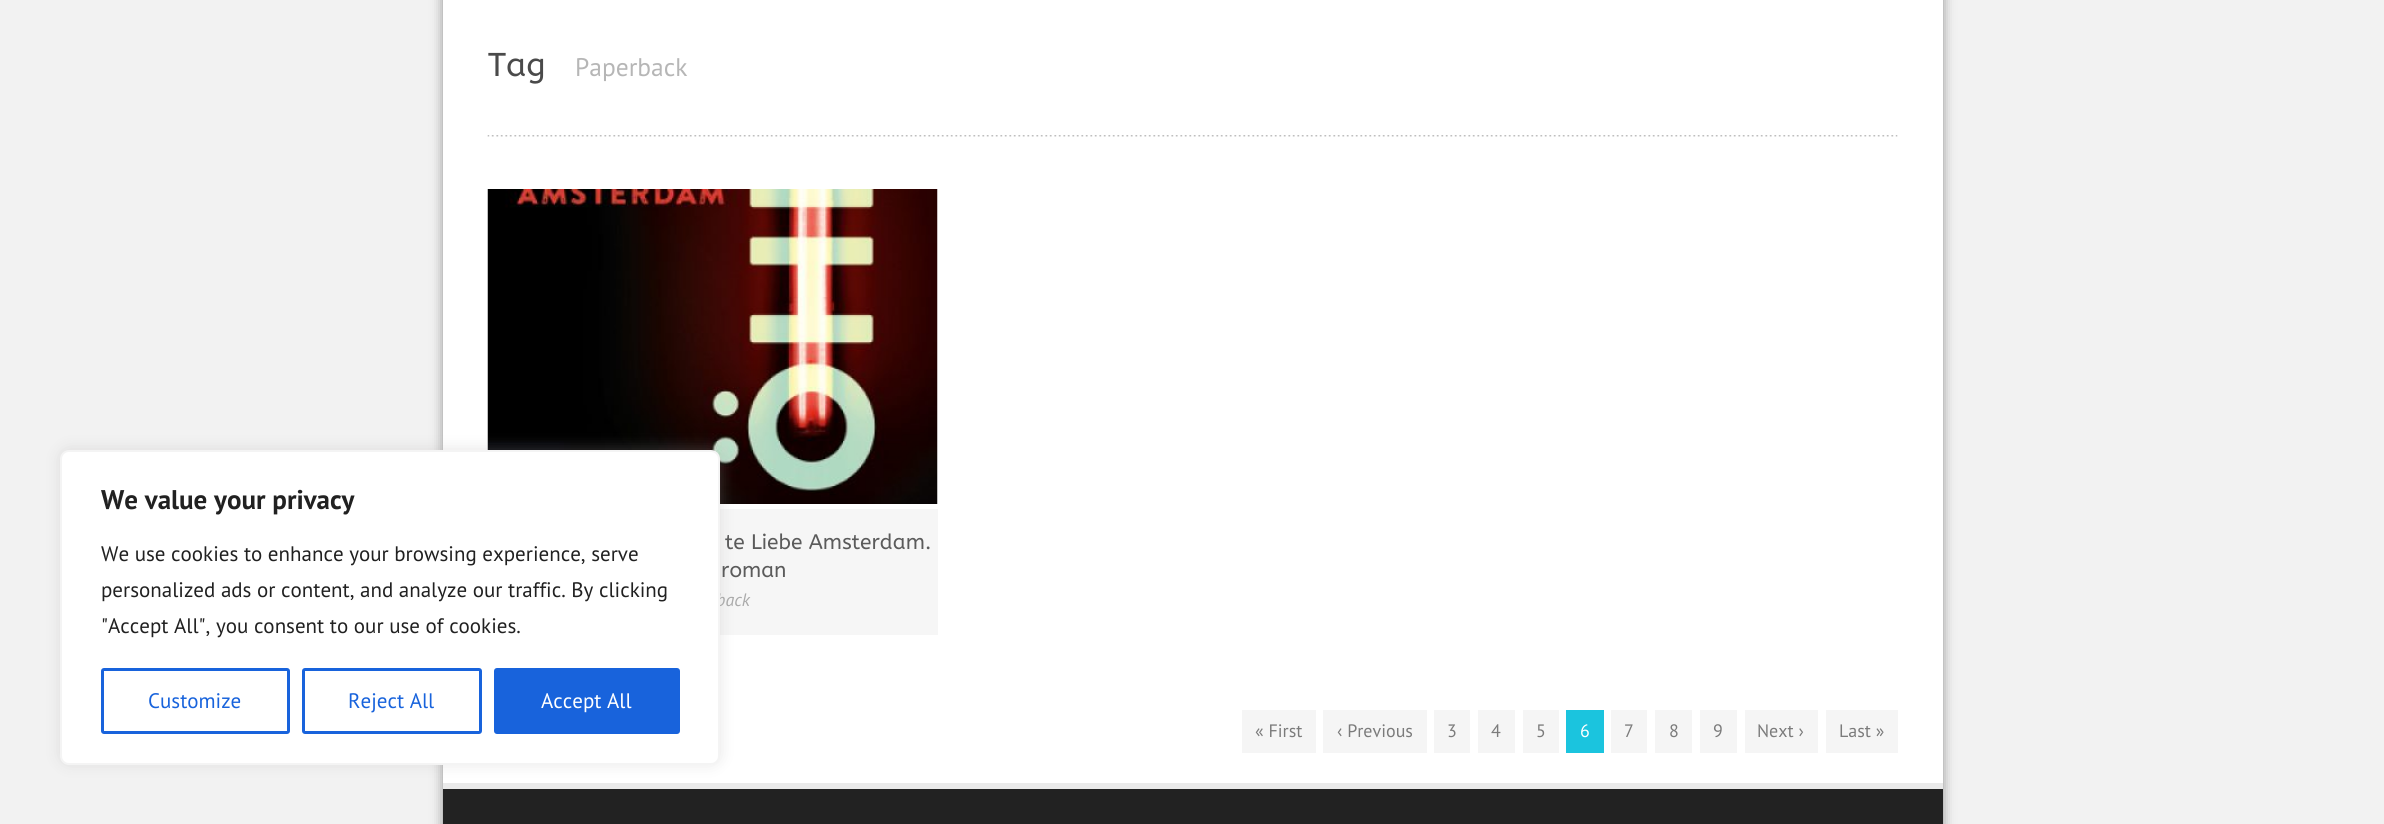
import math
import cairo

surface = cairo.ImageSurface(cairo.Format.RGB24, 2384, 824)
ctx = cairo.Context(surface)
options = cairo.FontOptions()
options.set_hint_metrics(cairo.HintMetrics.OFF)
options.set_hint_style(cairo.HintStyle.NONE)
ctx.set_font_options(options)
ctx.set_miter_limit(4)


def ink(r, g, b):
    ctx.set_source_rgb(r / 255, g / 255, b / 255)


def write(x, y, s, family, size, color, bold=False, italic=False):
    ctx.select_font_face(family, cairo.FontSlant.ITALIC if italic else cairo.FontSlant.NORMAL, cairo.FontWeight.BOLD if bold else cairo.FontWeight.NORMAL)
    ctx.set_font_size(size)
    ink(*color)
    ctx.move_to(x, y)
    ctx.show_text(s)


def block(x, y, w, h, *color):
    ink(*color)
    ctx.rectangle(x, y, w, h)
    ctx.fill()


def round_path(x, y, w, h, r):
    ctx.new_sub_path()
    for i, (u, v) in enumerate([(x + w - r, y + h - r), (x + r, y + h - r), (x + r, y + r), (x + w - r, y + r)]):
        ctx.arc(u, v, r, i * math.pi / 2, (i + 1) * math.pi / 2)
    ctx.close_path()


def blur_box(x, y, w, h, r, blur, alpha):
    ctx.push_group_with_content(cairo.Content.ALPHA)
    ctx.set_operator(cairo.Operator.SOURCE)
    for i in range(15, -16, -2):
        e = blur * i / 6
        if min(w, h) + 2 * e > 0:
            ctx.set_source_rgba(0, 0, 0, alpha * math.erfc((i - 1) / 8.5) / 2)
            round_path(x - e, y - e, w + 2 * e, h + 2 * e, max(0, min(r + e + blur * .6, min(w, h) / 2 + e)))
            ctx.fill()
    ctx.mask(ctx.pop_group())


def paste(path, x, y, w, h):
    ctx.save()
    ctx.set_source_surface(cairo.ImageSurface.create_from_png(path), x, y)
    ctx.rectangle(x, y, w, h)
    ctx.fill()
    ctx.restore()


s1 = dict(family="PT Sans", size=18, color=(170, 170, 170), italic=True)
s2 = dict(family="PT Sans", size=27, color=(33, 33, 33), bold=True)
s3 = dict(family="PT Sans", size=21, color=(33, 33, 33))
s4 = dict(family="PT Sans", size=21, color=(24, 99, 220))
s5 = dict(family="PT Sans", size=21, color=(255, 255, 255))
s6 = dict(family="ABeeZee", size=33, color=(74, 74, 74))
s7 = dict(family="PT Sans", size=25.5, color=(182, 182, 182))
s8 = dict(family="ABeeZee", size=21, color=(91, 91, 91))
s9 = dict(family="PT Sans", size=18, color=(123, 123, 123))
s10 = dict(family="PT Sans", size=18, color=(255, 255, 255))

ink(242, 242, 242)
ctx.paint()
ink(0, 0, 0)
blur_box(443, -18, 1500, 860, 0, 6, 0.4)
block(443, 0, 1500, 783, 255, 255, 255)
paste("pic2.png", 487, 189, 451, 315)
block(720, 509, 218, 126, 246, 246, 246)
block(443, 783, 1500, 6, 234, 234, 234)
ink(172, 171, 171)
blur_box(60, 449, 660, 315, 9, 7.5, 0.3)
write(716, 606, "back", **s1)
ink(255, 255, 255)
round_path(61, 451, 658, 313, 8)
ctx.fill_preserve()
ink(244, 244, 244)
ctx.stroke()
write(101, 509, "We value your privacy", **s2)
write(101, 561, "We use cookies to enhance your browsing experience, serve", **s3)
write(101, 597, "personalized ads or content, and analyze our traffic. By clicking", **s3)
write(101, 633, "\"Accept All\", you consent to our use of cookies.", **s3)
round_path(102.5, 669.5, 186, 63, 1.5)
ink(24, 99, 220)
ctx.set_line_width(3)
ctx.stroke()
write(148, 708, "Customize", **s4)
round_path(303.5, 669.5, 177, 63, 1.5)
ctx.stroke()
write(348, 708, "Reject All", **s4)
round_path(495.5, 669.5, 183, 63, 1.5)
ctx.fill_preserve()
ctx.stroke()
write(541, 708, "Accept All", **s5)
paste("pic1.png", 487, 135, 1411, 2)
ctx.save()
ctx.rectangle(488, 0, 1410, 137)
ctx.clip()
write(488, 76, "Tag", **s6)
ctx.restore()
write(575, 76, "Paperback", **s7)
write(725, 549, "te Liebe Amsterdam.", **s8)
write(721, 577, "roman", **s8)
block(1242, 710, 74, 43, 245, 245, 245)
write(1255, 737, "« First", **s9)
block(1323, 710, 104, 43, 245, 245, 245)
write(1337, 737, "‹ Previous", **s9)
block(1434, 710, 36, 43, 245, 245, 245)
write(1447, 737, "3", **s9)
block(1478, 710, 37, 43, 245, 245, 245)
write(1491, 737, "4", **s9)
block(1523, 710, 36, 43, 245, 245, 245)
write(1536, 737, "5", **s9)
block(1566, 710, 38, 43, 27, 196, 222)
write(1580, 737, "6", **s10)
block(1611, 710, 36, 43, 245, 245, 245)
write(1624, 737, "7", **s9)
block(1655, 710, 37, 43, 245, 245, 245)
write(1669, 737, "8", **s9)
block(1700, 710, 37, 43, 245, 245, 245)
write(1713, 737, "9", **s9)
block(1745, 710, 73, 43, 245, 245, 245)
write(1757, 737, "Next ›", **s9)
block(1826, 710, 72, 43, 245, 245, 245)
write(1839, 737, "Last »", **s9)
block(443, 789, 1500, 35, 34, 34, 34)
surface.write_to_png("screenshot.png")
